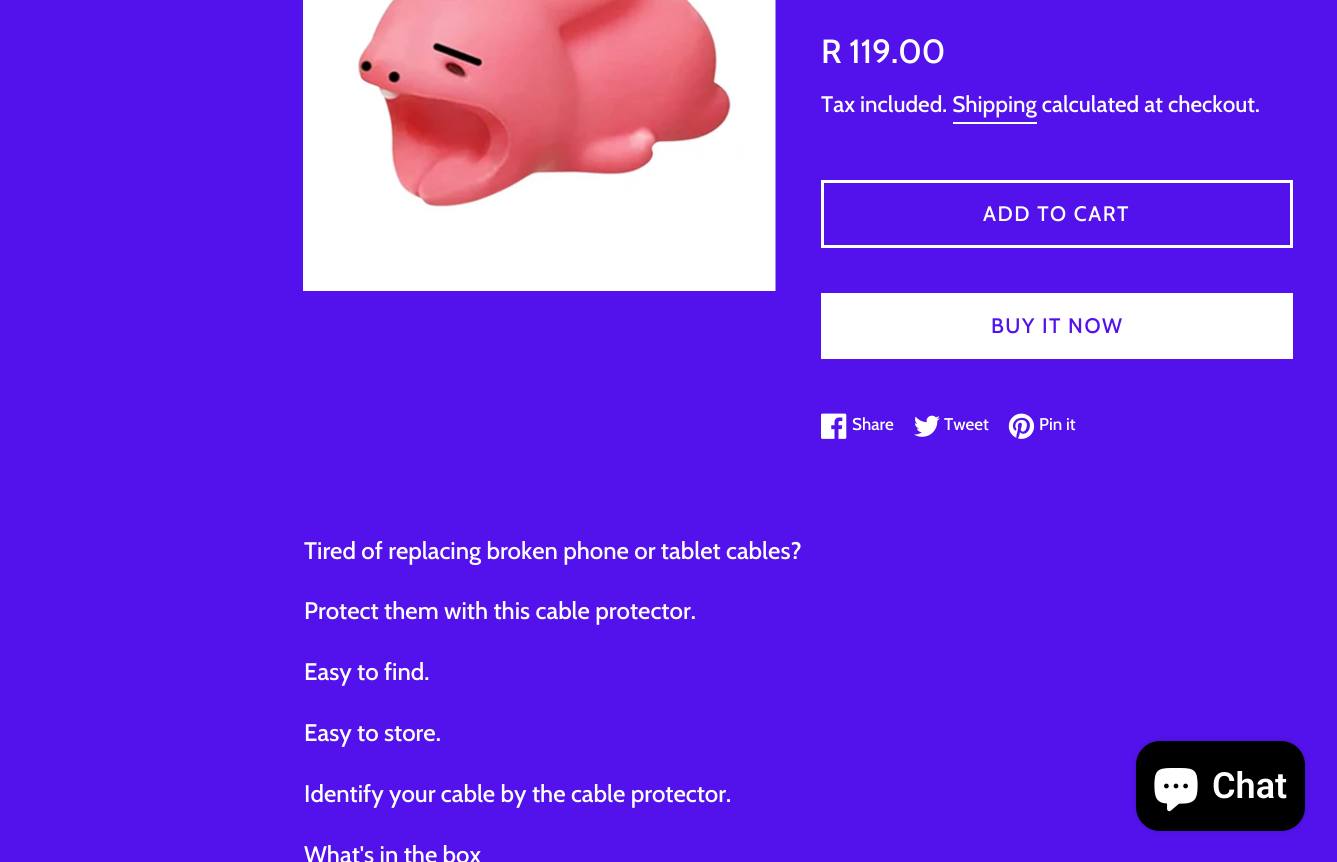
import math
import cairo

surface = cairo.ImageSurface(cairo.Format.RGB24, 1337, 862)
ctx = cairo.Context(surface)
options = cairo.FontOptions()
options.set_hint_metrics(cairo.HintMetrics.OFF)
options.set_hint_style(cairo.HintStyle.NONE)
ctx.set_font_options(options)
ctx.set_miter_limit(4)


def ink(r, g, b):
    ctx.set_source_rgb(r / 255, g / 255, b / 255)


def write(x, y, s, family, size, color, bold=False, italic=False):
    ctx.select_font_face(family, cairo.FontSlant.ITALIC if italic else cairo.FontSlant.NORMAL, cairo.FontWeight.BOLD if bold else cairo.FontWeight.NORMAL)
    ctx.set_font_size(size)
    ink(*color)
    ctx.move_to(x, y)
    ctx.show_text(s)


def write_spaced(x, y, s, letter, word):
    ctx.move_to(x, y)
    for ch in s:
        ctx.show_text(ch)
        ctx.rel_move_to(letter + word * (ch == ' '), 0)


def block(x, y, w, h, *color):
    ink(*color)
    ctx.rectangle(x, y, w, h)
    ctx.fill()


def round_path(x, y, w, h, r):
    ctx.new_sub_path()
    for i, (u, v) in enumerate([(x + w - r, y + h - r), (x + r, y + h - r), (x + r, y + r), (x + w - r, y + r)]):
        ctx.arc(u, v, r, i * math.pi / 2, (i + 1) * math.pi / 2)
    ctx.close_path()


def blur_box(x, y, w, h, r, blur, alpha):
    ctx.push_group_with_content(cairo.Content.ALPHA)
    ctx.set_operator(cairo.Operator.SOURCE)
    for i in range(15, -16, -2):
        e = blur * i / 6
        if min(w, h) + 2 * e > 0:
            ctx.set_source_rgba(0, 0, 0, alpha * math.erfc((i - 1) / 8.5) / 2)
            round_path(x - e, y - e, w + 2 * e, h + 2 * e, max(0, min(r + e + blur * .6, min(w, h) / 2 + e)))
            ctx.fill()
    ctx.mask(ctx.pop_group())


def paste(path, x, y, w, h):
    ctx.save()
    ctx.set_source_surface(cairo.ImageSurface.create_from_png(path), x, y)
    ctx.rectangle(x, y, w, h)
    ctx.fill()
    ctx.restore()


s1 = dict(family="Cabin Medium", size=33.5, color=(255, 255, 255))
s2 = dict(family="Cabin Medium", size=22.5, color=(255, 255, 255))
s3 = dict(family="Cabin Medium", size=17, color=(255, 255, 255))
s4 = dict(family="Cabin Medium", size=24, color=(255, 255, 255))
s5 = dict(family="Roboto SemiBold", size=36, color=(255, 255, 255))

ink(83, 18, 236)
ctx.paint()
paste("pic1.png", 303, 0, 473, 291)
write(821, 63, "R 119.00", **s1)
write(821, 112, "Tax included. Shipping calculated at checkout.", **s2)
block(953, 122, 84, 2, 255, 255, 255)
ctx.rectangle(822.5, 181.5, 469, 65)
ctx.set_line_width(3)
ctx.stroke()
ctx.set_font_size(21)
write_spaced(983, 221, "ADD TO CART", 1.5, 0)
block(821, 293, 472, 66, 255, 255, 255)
ink(83, 18, 236)
write_spaced(991, 333, "BUY IT NOW", 1.5, 0)
paste("pic2.png", 821, 413, 26, 26)
write(852, 430, "Share", **s3)
paste("pic3.png", 914, 415, 26, 22)
write(944, 430, "Tweet", **s3)
paste("pic4.png", 1008, 413, 27, 26)
write(1039, 430, "Pin it", **s3)
write(304, 559, "Tired of replacing broken phone or tablet cables?", **s4)
write(304, 619, "Protect them with this cable protector.", **s4)
write(304, 680, "Easy to find.", **s4)
write(304, 741, "Easy to store.", **s4)
write(304, 802, "Identify your cable by the cable protector.", **s4)
write(304, 863, "What's in the box", **s4)
ink(0, 0, 0)
blur_box(1136, 741, 169, 90, 24, 4, 0.15)
ink(0, 0, 0)
round_path(1136, 741, 169, 90, 24)
ctx.fill()
paste("pic5.png", 1154, 768, 44, 44)
write(1212, 798, "Chat", **s5)
surface.write_to_png("screenshot.png")
